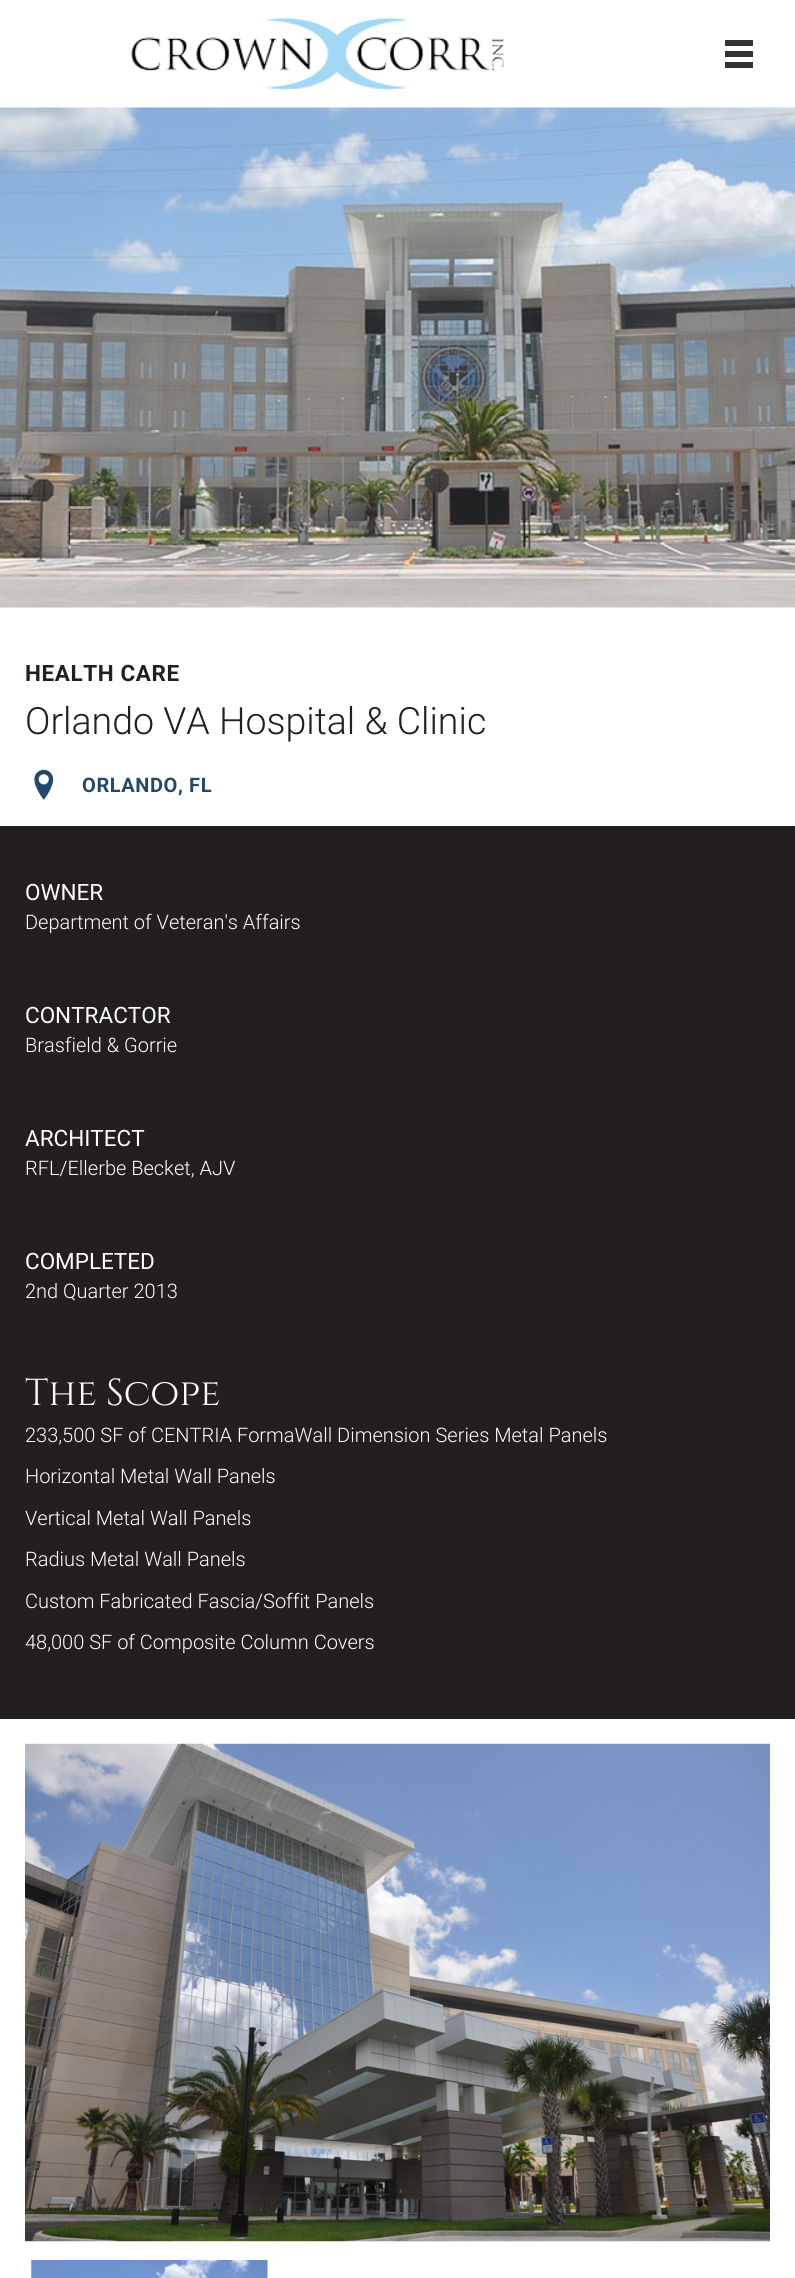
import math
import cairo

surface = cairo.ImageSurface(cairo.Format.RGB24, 795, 2278)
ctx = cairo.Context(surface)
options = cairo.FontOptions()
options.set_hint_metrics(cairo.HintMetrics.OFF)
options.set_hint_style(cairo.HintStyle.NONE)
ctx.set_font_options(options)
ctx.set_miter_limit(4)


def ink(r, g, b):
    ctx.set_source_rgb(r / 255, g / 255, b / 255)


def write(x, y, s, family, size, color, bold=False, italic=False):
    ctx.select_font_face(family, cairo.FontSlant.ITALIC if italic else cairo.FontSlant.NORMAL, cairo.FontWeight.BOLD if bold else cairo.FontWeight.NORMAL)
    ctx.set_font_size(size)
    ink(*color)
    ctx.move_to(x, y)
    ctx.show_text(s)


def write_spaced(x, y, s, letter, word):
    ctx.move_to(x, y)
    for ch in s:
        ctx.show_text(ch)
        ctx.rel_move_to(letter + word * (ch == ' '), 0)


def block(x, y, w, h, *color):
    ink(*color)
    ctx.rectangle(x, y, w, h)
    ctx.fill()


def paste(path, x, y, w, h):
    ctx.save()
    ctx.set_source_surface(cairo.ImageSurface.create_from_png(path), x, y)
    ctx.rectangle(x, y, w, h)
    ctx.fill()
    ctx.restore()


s1 = dict(family="Roboto Light", size=37.5, color=(35, 31, 32))
s2 = dict(family="Roboto", size=22.5, color=(255, 255, 255))
s3 = dict(family="Roboto Light", size=20, color=(255, 255, 255))
s4 = dict(family="Cinzel", size=37.5, color=(255, 255, 255))

ink(255, 255, 255)
ctx.paint()
paste("pic1.png", 131, 17, 373, 74)
block(725, 40, 28, 6, 51, 51, 51)
block(725, 51, 28, 6, 51, 51, 51)
block(725, 62, 28, 6, 51, 51, 51)
paste("pic2.png", 0, 107, 795, 501)
ctx.select_font_face("Roboto", cairo.FontSlant.NORMAL, cairo.FontWeight.BOLD)
ctx.set_font_size(22.5)
ink(35, 31, 32)
write_spaced(25, 681, "HEALTH CARE", 0.6, 0)
write(25, 734, "Orlando VA Hospital & Clinic", **s1)
paste("pic3.png", 34, 769, 20, 31)
ctx.select_font_face("Roboto", cairo.FontSlant.NORMAL, cairo.FontWeight.BOLD)
ctx.set_font_size(20)
ink(34, 72, 107)
write_spaced(82, 792, "ORLANDO, FL", 0.6, 0)
block(0, 826, 795, 893, 35, 31, 32)
write(25, 900, "OWNER", **s2)
write(25, 929, "Department of Veteran's Affairs", **s3)
write(25, 1023, "CONTRACTOR", **s2)
write(25, 1052, "Brasfield & Gorrie", **s3)
write(25, 1146, "ARCHITECT", **s2)
write(25, 1175, "RFL/Ellerbe Becket, AJV", **s3)
write(25, 1269, "COMPLETED", **s2)
write(25, 1298, "2nd Quarter 2013", **s3)
write(25, 1405, "The Scope", **s4)
write(25, 1442, "233,500 SF of CENTRIA FormaWall Dimension Series Metal Panels", **s3)
write(25, 1483, "Horizontal Metal Wall Panels", **s3)
write(25, 1525, "Vertical Metal Wall Panels", **s3)
write(25, 1566, "Radius Metal Wall Panels", **s3)
write(25, 1608, "Custom Fabricated Fascia/Soffit Panels", **s3)
write(25, 1649, "48,000 SF of Composite Column Covers", **s3)
paste("pic4.png", 25, 1743, 745, 499)
paste("pic5.png", 31, 2260, 237, 18)
surface.write_to_png("screenshot.png")
